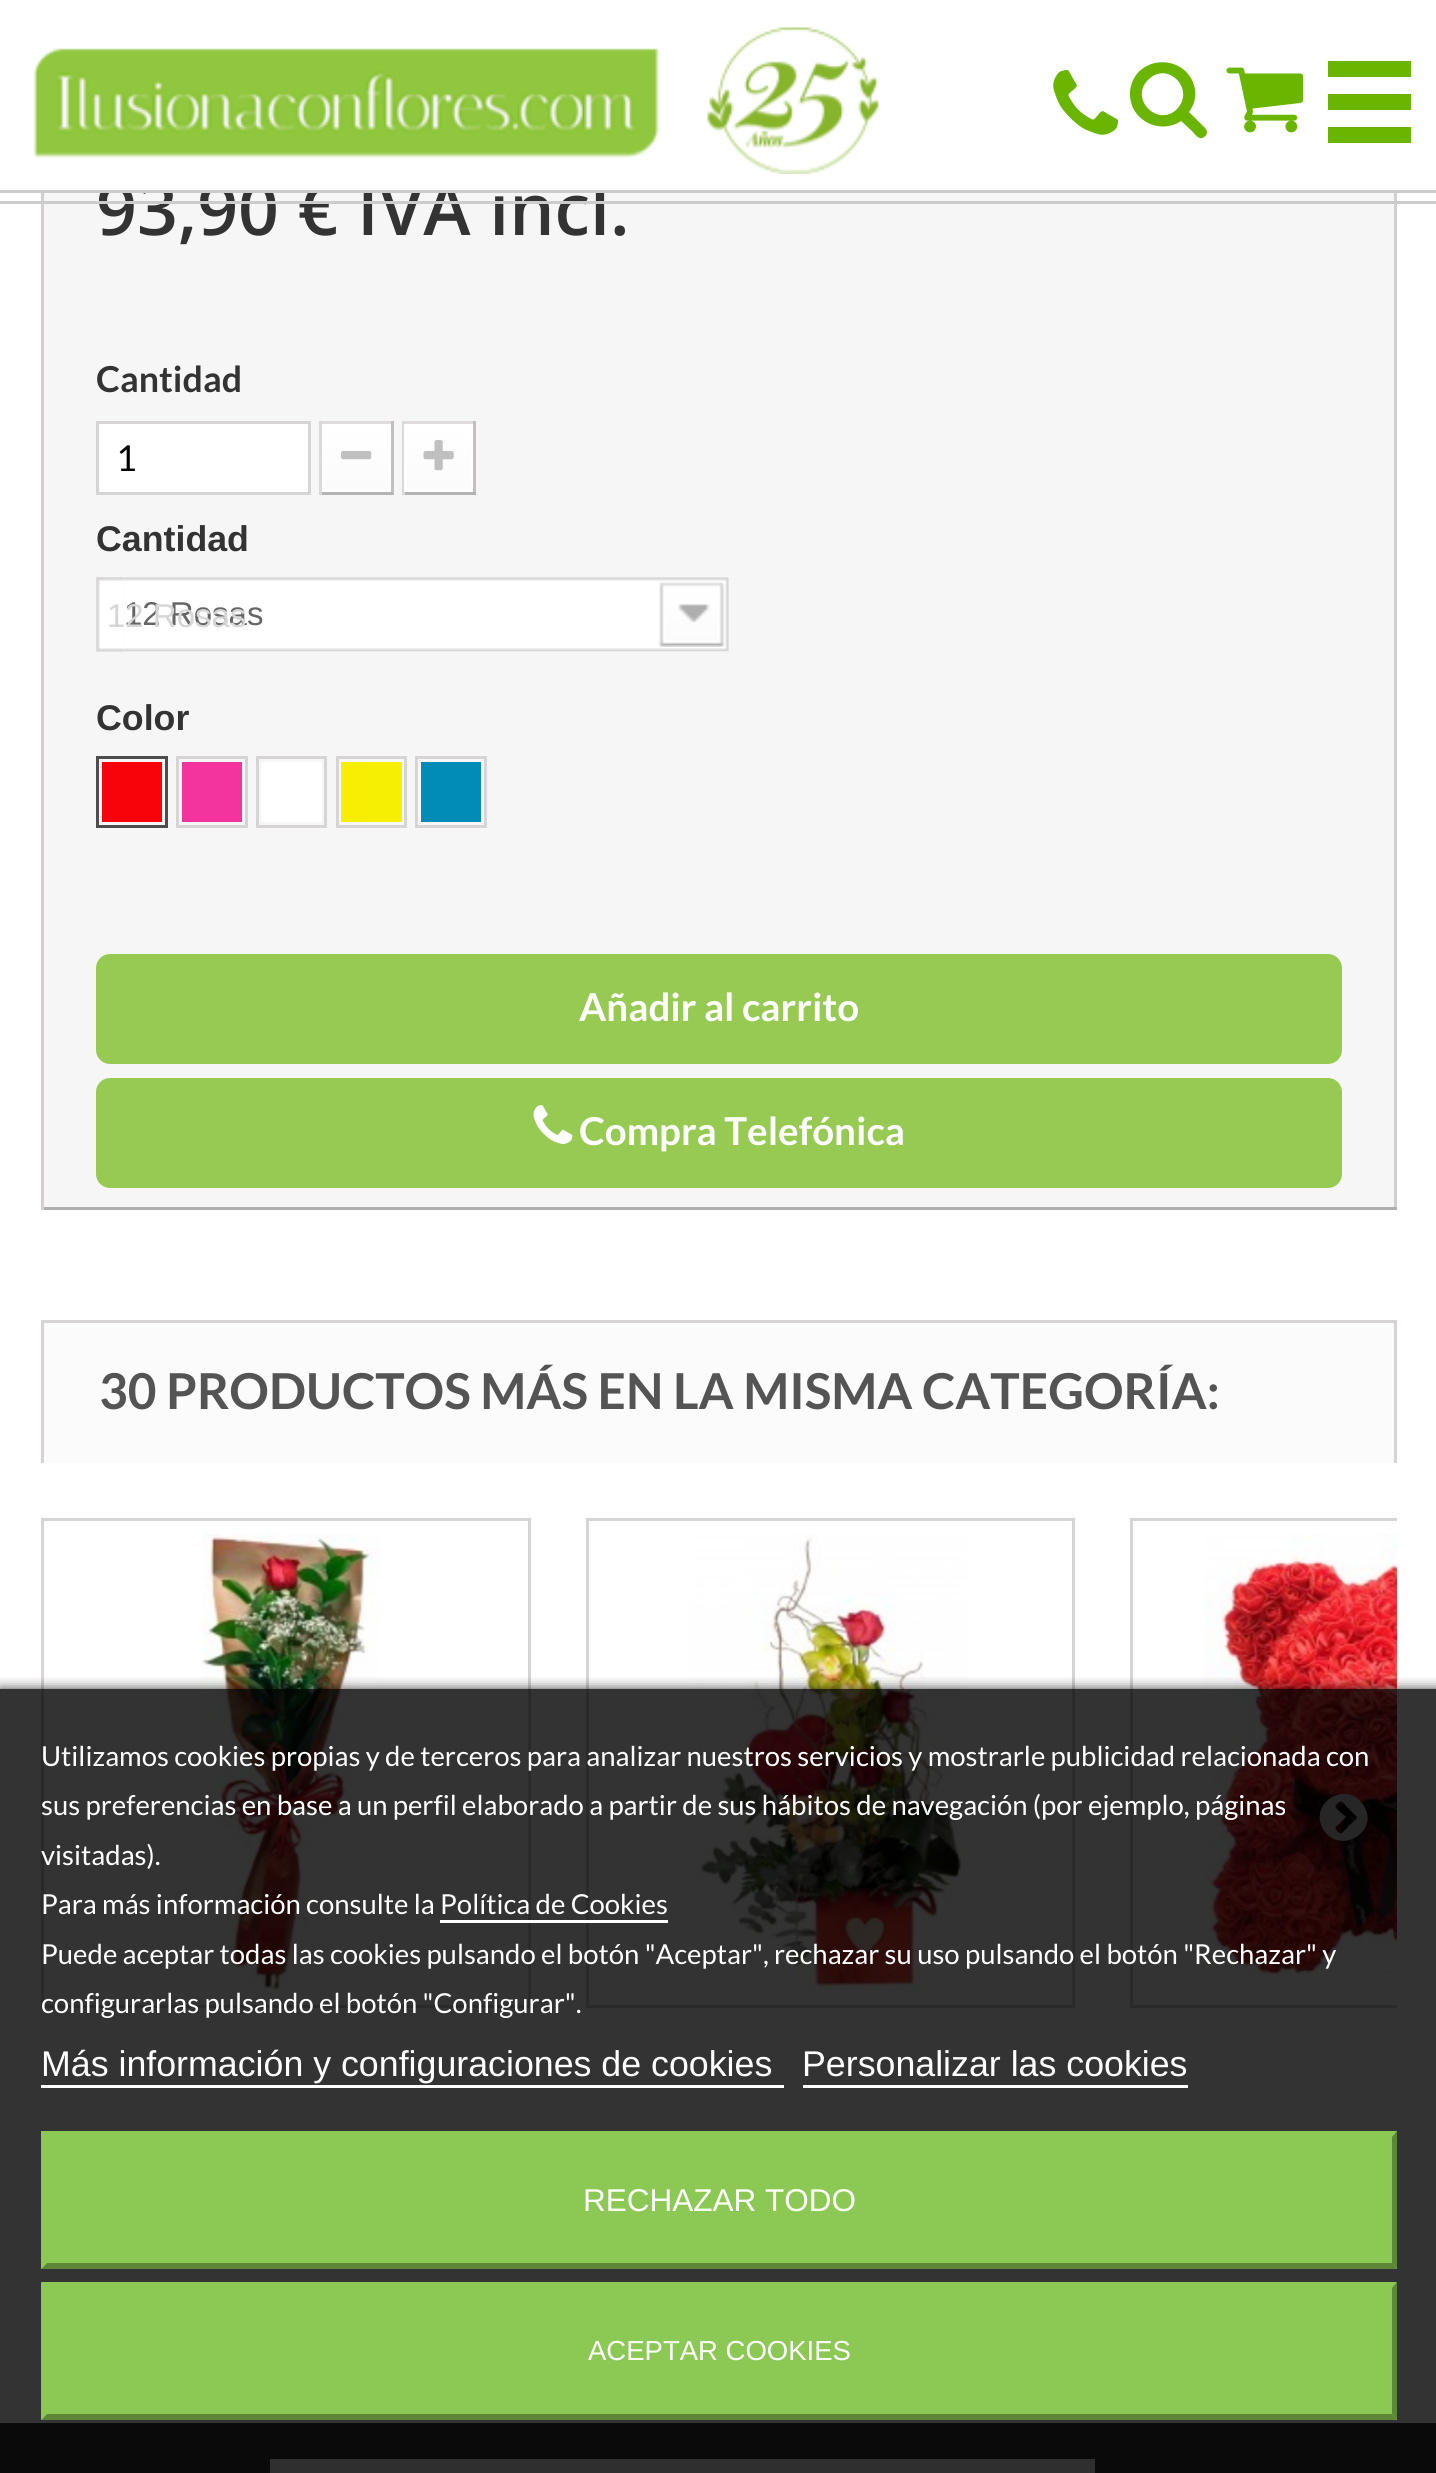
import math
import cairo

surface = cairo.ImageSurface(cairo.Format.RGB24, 1436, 2473)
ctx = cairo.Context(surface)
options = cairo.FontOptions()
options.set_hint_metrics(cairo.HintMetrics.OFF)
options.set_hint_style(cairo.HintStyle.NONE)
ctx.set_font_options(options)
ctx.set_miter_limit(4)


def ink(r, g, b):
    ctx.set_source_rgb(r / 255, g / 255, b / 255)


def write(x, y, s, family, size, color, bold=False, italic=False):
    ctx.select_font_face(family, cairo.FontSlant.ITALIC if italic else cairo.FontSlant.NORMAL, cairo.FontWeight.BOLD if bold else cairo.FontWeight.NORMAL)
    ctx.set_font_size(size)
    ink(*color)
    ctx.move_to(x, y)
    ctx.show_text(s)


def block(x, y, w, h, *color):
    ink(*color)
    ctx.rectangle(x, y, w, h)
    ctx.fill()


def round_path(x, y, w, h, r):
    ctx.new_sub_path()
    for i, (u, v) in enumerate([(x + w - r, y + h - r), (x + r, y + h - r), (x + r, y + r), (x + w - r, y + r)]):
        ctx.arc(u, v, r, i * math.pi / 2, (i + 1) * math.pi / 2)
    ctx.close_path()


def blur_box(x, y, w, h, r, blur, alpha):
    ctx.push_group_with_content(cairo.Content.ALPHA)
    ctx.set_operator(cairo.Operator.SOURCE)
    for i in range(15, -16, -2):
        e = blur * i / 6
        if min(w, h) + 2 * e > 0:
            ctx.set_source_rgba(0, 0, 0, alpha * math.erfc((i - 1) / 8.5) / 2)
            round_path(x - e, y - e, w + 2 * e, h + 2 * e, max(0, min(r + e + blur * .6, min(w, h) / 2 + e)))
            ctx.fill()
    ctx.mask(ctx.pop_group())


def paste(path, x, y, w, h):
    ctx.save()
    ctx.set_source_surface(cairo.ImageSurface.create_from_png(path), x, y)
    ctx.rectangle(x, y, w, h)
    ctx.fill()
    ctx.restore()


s1 = dict(family="Open Sans SemiBold", size=71.5, color=(51, 51, 51))
s2 = dict(family="Lato", size=35.75, color=(51, 51, 51), bold=True)
s3 = dict(family="Lato", size=35.75, color=(0, 0, 0))
s4 = dict(family="Liberation Sans", size=35.75, color=(51, 51, 51), bold=True)
s5 = dict(family="Liberation Sans", size=33, color=(102, 102, 102))
s6 = dict(family="Liberation Sans", size=33, color=(214, 214, 214))
s7 = dict(family="Lato", size=38.5, color=(255, 255, 255), bold=True)
s8 = dict(family="Lato", size=49.5, color=(85, 84, 84), bold=True)
s9 = dict(family="Lato", size=27.5, color=(255, 255, 255))
s10 = dict(family="Liberation Sans", size=35.75, color=(255, 255, 255))
s11 = dict(family="Liberation Sans", size=31.5, color=(255, 255, 255))
s12 = dict(family="Liberation Sans", size=27.5, color=(255, 255, 255))

ink(255, 255, 255)
ctx.paint()
block(44, 193, 1350, 1014, 246, 246, 246)
block(1394, 193, 3, 1017, 210, 208, 208)
block(41, 1207, 1356, 3, 176, 175, 175)
block(41, 193, 3, 1017, 210, 208, 208)
write(96, 235, "93,90 € IVA incl.", **s1)
write(96, 392, "Cantidad", **s2)
ink(255, 255, 255)
ctx.rectangle(97.5, 422.5, 212, 71)
ctx.fill_preserve()
ink(214, 212, 212)
ctx.set_line_width(3)
ctx.stroke()
write(116, 471, "1", **s3)
block(319, 421, 74, 3, 222, 220, 220)
block(391, 421, 3, 74, 193, 191, 191)
block(319, 492, 74, 3, 181, 180, 180)
block(319, 421, 3, 74, 218, 216, 216)
gradient = cairo.LinearGradient(356, 426, 356, 490)
gradient.add_color_stop_rgba(0, 1, 1, 1, 1)
gradient.add_color_stop_rgba(1, 0.984, 0.984, 0.984, 1)
ctx.set_source(gradient)
ctx.rectangle(325, 427, 63, 62)
ctx.fill()
ctx.rectangle(323.5, 425.5, 66, 65)
ink(255, 255, 255)
ctx.stroke()
paste("pic1.png", 341, 451, 31, 9)
block(402, 421, 74, 3, 222, 220, 220)
block(473, 421, 3, 74, 193, 191, 191)
block(402, 492, 74, 3, 181, 180, 180)
block(402, 421, 3, 74, 218, 216, 216)
gradient = cairo.LinearGradient(439, 426, 439, 490)
gradient.add_color_stop_rgba(0, 1, 1, 1, 1)
gradient.add_color_stop_rgba(1, 0.984, 0.984, 0.984, 1)
ctx.set_source(gradient)
ctx.rectangle(407, 427, 63, 62)
ctx.fill()
ctx.rectangle(405.5, 425.5, 66, 65)
ink(255, 255, 255)
ctx.stroke()
paste("pic2.png", 423, 440, 31, 31)
write(96, 551, "Cantidad", **s4)
paste("pic3.png", 96, 577, 29, 75)
paste("pic4.png", 124, 577, 605, 75)
write(124, 625, "12 Rosas", **s5)
write(107, 627, "12 Rosas", **s6)
write(96, 730, "Color", **s4)
ctx.rectangle(97.5, 757.5, 69, 69)
ink(77, 77, 77)
ctx.stroke()
block(102, 762, 60, 60, 246, 4, 9)
ctx.rectangle(177.5, 757.5, 69, 69)
ink(214, 212, 212)
ctx.stroke()
block(182, 762, 60, 60, 243, 52, 158)
ctx.rectangle(257.5, 757.5, 68, 69)
ink(214, 212, 212)
ctx.stroke()
block(261, 762, 61, 60, 255, 255, 255)
ctx.rectangle(337.5, 757.5, 68, 69)
ink(214, 212, 212)
ctx.stroke()
block(341, 762, 61, 60, 246, 239, 4)
ctx.rectangle(416.5, 757.5, 69, 69)
ink(214, 212, 212)
ctx.stroke()
block(421, 762, 60, 60, 0, 140, 183)
ink(151, 202, 83)
round_path(96, 954, 1246, 110, 14)
ctx.fill()
write(579, 1021, "Añadir al carrito", **s7)
ink(151, 202, 83)
round_path(96, 1078, 1246, 110, 14)
ctx.fill()
paste("pic5.png", 533, 1105, 40, 39)
write(579, 1145, "Compra Telefónica", **s7)
block(44, 1323, 1350, 140, 251, 251, 251)
block(41, 1320, 1356, 3, 214, 212, 212)
block(1394, 1320, 3, 143, 214, 212, 212)
block(41, 1320, 3, 143, 214, 212, 212)
write(99, 1409, "30 PRODUCTOS MÁS EN LA MISMA CATEGORÍA:", **s8)
ctx.rectangle(42.5, 1519.5, 487, 487)
ink(214, 212, 212)
ctx.stroke()
paste("pic6.png", 201, 1534, 179, 457)
ctx.rectangle(587.5, 1519.5, 486, 487)
ctx.stroke()
paste("pic7.png", 690, 1534, 277, 457)
ctx.save()
ctx.rectangle(41, 1518, 1356, 740)
ctx.clip()
ctx.rectangle(1131.5, 1519.5, 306, 487)
ctx.stroke()
ctx.restore()
paste("pic8.png", 1204, 1534, 193, 442)
ink(192, 192, 192)
ctx.new_path()
ctx.move_to(1342, 1833)
ctx.line_to(1354, 1821)
ctx.curve_to(1358, 1817, 1358, 1818, 1354, 1814)
ctx.line_to(1347, 1807)
ctx.curve_to(1343, 1803, 1342, 1799, 1338, 1803)
ctx.curve_to(1335, 1806, 1334, 1806, 1338, 1810)
ctx.line_to(1346, 1817)
ctx.line_to(1339, 1824)
ctx.curve_to(1336, 1827, 1334, 1827, 1337, 1831)
ctx.curve_to(1338, 1832, 1340, 1834, 1342, 1833)
ctx.close_path()
ctx.move_to(1364, 1806)
ctx.curve_to(1380, 1832, 1339, 1856, 1323, 1829)
ctx.curve_to(1308, 1802, 1348, 1779, 1364, 1806)
ctx.close_path()
ctx.fill()
block(0, 2423, 1436, 50, 51, 51, 51)
block(102, 180, 503, 10, 255, 255, 255)
block(0, 190, 1436, 3, 204, 204, 204)
paste("pic9.png", 33, 27, 846, 147)
paste("pic10.png", 1053, 69, 66, 66)
ink(106, 181, 0)
ctx.new_path()
ctx.move_to(1177, 109)
ctx.curve_to(1196, 89, 1167, 60, 1148, 80)
ctx.curve_to(1129, 99, 1158, 128, 1177, 109)
ctx.close_path()
ctx.move_to(1207, 132)
ctx.curve_to(1207, 134, 1206, 136, 1204, 137)
ctx.curve_to(1199, 141, 1195, 134, 1192, 131)
ctx.line_to(1181, 121)
ctx.curve_to(1165, 132, 1142, 126, 1133, 108)
ctx.curve_to(1130, 101, 1129, 93, 1131, 86)
ctx.curve_to(1139, 55, 1184, 54, 1194, 85)
ctx.curve_to(1197, 94, 1195, 104, 1189, 112)
ctx.line_to(1205, 128)
ctx.curve_to(1206, 129, 1207, 131, 1207, 132)
ctx.close_path()
ctx.fill()
paste("pic11.png", 1226, 67, 78, 66)
block(1328, 127, 83, 16, 106, 181, 0)
block(1328, 94, 83, 16, 106, 181, 0)
block(1328, 61, 83, 16, 106, 181, 0)
block(0, 201, 1436, 3, 204, 204, 204)
block(270, 2459, 825, 14, 235, 235, 235)
ctx.save()
ctx.rectangle(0, 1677, 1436, 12)
ctx.clip()
ink(0, 0, 0)
blur_box(0, 1691, 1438, 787, 0, 7, 1)
ctx.restore()
ctx.set_source_rgba(0, 0, 0, 0.8)
ctx.rectangle(0, 1689, 1436, 784)
ctx.fill()
write(41, 1766, "Utilizamos cookies propias y de terceros para analizar nuestros servicios y mostrarle publicidad relacionada con", **s9)
write(41, 1815, "sus preferencias en base a un perfil elaborado a partir de sus hábitos de navegación (por ejemplo, páginas", **s9)
write(41, 1865, "visitadas).", **s9)
write(41, 1914, "Para más información consulte la Política de Cookies", **s9)
block(440, 1920, 228, 3, 255, 255, 255)
write(41, 1964, "Puede aceptar todas las cookies pulsando el botón \"Aceptar\", rechazar su uso pulsando el botón \"Rechazar\" y", **s9)
write(41, 2013, "configurarlas pulsando el botón \"Configurar\".", **s9)
write(41, 2076, "Más información y configuraciones de cookies", **s10)
block(41, 2085, 743, 3, 255, 255, 255)
write(802, 2076, "Personalizar las cookies", **s10)
block(803, 2085, 385, 3, 255, 255, 255)
block(41, 2131, 1356, 138, 139, 201, 84)
ink(93, 134, 56)
ctx.new_path()
ctx.move_to(1397, 2131)
ctx.line_to(1397, 2269)
ctx.line_to(1392, 2263)
ctx.line_to(1392, 2137)
ctx.close_path()
ctx.fill()
ctx.new_path()
ctx.move_to(1397, 2269)
ctx.line_to(41, 2269)
ctx.line_to(47, 2263)
ctx.line_to(1392, 2263)
ctx.close_path()
ctx.fill()
ink(139, 201, 84)
ctx.new_path()
ctx.move_to(41, 2269)
ctx.line_to(41, 2131)
ctx.line_to(47, 2137)
ctx.line_to(47, 2263)
ctx.close_path()
ctx.fill()
write(583, 2211, "RECHAZAR TODO", **s11)
block(41, 2283, 1356, 137, 139, 201, 84)
ctx.new_path()
ctx.move_to(41, 2282)
ctx.line_to(1397, 2282)
ctx.line_to(1392, 2288)
ctx.line_to(47, 2288)
ctx.close_path()
ctx.fill()
ink(93, 134, 56)
ctx.new_path()
ctx.move_to(1397, 2282)
ctx.line_to(1397, 2420)
ctx.line_to(1392, 2414)
ctx.line_to(1392, 2288)
ctx.close_path()
ctx.fill()
ctx.new_path()
ctx.move_to(1397, 2420)
ctx.line_to(41, 2420)
ctx.line_to(47, 2414)
ctx.line_to(1392, 2414)
ctx.close_path()
ctx.fill()
ink(139, 201, 84)
ctx.new_path()
ctx.move_to(41, 2420)
ctx.line_to(41, 2282)
ctx.line_to(47, 2288)
ctx.line_to(47, 2414)
ctx.close_path()
ctx.fill()
write(588, 2360, "ACEPTAR COOKIES", **s12)
surface.write_to_png("screenshot.png")
